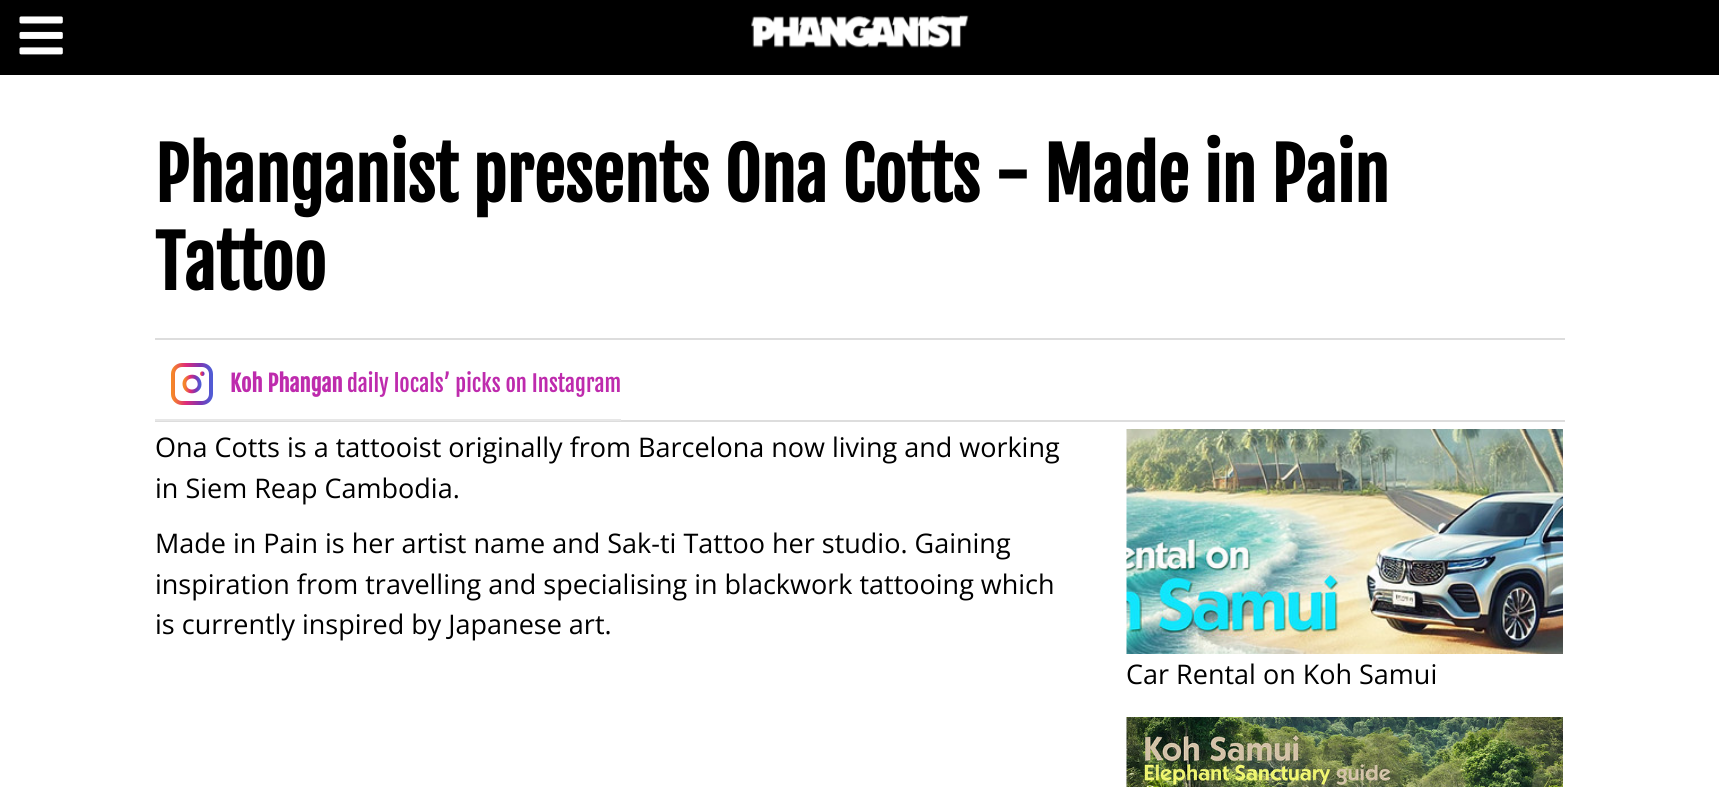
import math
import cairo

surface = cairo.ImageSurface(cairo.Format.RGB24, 1719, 787)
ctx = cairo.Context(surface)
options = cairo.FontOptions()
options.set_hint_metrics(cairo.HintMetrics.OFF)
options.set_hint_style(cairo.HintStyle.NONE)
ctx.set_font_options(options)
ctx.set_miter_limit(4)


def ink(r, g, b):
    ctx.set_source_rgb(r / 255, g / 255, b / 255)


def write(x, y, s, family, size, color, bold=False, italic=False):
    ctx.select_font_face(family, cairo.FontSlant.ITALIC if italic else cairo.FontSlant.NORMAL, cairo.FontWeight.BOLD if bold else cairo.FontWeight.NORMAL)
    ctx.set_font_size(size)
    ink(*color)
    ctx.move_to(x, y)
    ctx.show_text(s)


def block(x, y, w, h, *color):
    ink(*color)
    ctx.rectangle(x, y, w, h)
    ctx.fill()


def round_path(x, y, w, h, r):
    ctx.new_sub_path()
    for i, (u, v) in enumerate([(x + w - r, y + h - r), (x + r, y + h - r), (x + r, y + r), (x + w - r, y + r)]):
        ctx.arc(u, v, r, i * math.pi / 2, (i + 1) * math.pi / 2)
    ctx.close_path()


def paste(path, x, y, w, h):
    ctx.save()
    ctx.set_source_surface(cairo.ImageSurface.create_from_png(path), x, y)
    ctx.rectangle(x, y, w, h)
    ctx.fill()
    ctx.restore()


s1 = dict(family="Fjalla One", size=70.25, color=(0, 0, 0), bold=True)
s2 = dict(family="Fjalla One", size=22.5, color=(190, 43, 173), bold=True)
s3 = dict(family="Fjalla One", size=22.5, color=(190, 43, 173))
s4 = dict(family="Open Sans", size=27, color=(0, 0, 0))

ink(255, 255, 255)
ctx.paint()
block(0, 0, 1719, 75, 0, 0, 0)
paste("pic1.png", 19, 16, 44, 39)
paste("pic2.png", 751, 15, 218, 33)
write(155, 202, "Phanganist presents Ona Cotts - Made in Pain", **s1)
write(155, 290, "Tattoo", **s1)
block(155, 338, 1410, 2, 221, 221, 221)
block(155, 420, 1410, 2, 221, 221, 221)
block(155, 419, 466, 2, 231, 231, 231)
round_path(173, 365, 38, 38, 9)
gradient = cairo.LinearGradient(173, 365, 211, 365)
gradient.add_color_stop_rgba(0, 0.961, 0.522, 0.161, 1)
gradient.add_color_stop_rgba(0.35, 0.867, 0.165, 0.482, 1)
gradient.add_color_stop_rgba(0.7, 0.506, 0.204, 0.686, 1)
gradient.add_color_stop_rgba(1, 0.318, 0.357, 0.831, 1)
ctx.set_source(gradient)
ctx.set_line_width(4)
ctx.stroke()
ctx.new_path()
ctx.move_to(199.5, 383)
ctx.curve_to(201, 392.5, 186, 395, 184.5, 385)
ctx.curve_to(183, 375.5, 198, 373, 199.5, 383)
ctx.close_path()
gradient = cairo.LinearGradient(185, 376, 200, 376)
gradient.add_color_stop_rgba(0, 0.961, 0.522, 0.161, 1)
gradient.add_color_stop_rgba(0.35, 0.867, 0.165, 0.482, 1)
gradient.add_color_stop_rgba(0.7, 0.506, 0.204, 0.686, 1)
gradient.add_color_stop_rgba(1, 0.318, 0.357, 0.831, 1)
ctx.set_source(gradient)
ctx.set_line_width(3.8)
ctx.set_line_cap(cairo.LineCap.ROUND)
ctx.set_line_join(cairo.LineJoin.ROUND)
ctx.stroke()
gradient = cairo.LinearGradient(200, 371, 205, 371)
gradient.add_color_stop_rgba(0, 0.961, 0.522, 0.161, 1)
gradient.add_color_stop_rgba(0.35, 0.867, 0.165, 0.482, 1)
gradient.add_color_stop_rgba(0.7, 0.506, 0.204, 0.686, 1)
gradient.add_color_stop_rgba(1, 0.318, 0.357, 0.831, 1)
ctx.set_source(gradient)
ctx.arc(202.3, 373.7, 2.3, 0, 2 * math.pi)
ctx.fill()
write(230, 392, "Koh Phangan", **s2)
write(347, 392, "daily locals’ picks on Instagram", **s3)
write(155, 457, "Ona Cotts is a tattooist originally from Barcelona now living and working", **s4)
write(155, 498, "in Siem Reap Cambodia.", **s4)
write(155, 553, "Made in Pain is her artist name and Sak-ti Tattoo her studio. Gaining", **s4)
write(155, 594, "inspiration from travelling and specialising in blackwork tattooing which", **s4)
write(155, 634, "is currently inspired by Japanese art.", **s4)
paste("pic3.png", 1126, 429, 437, 225)
write(1126, 684, "Car Rental on Koh Samui", **s4)
paste("pic4.png", 1126, 717, 437, 70)
surface.write_to_png("screenshot.png")
